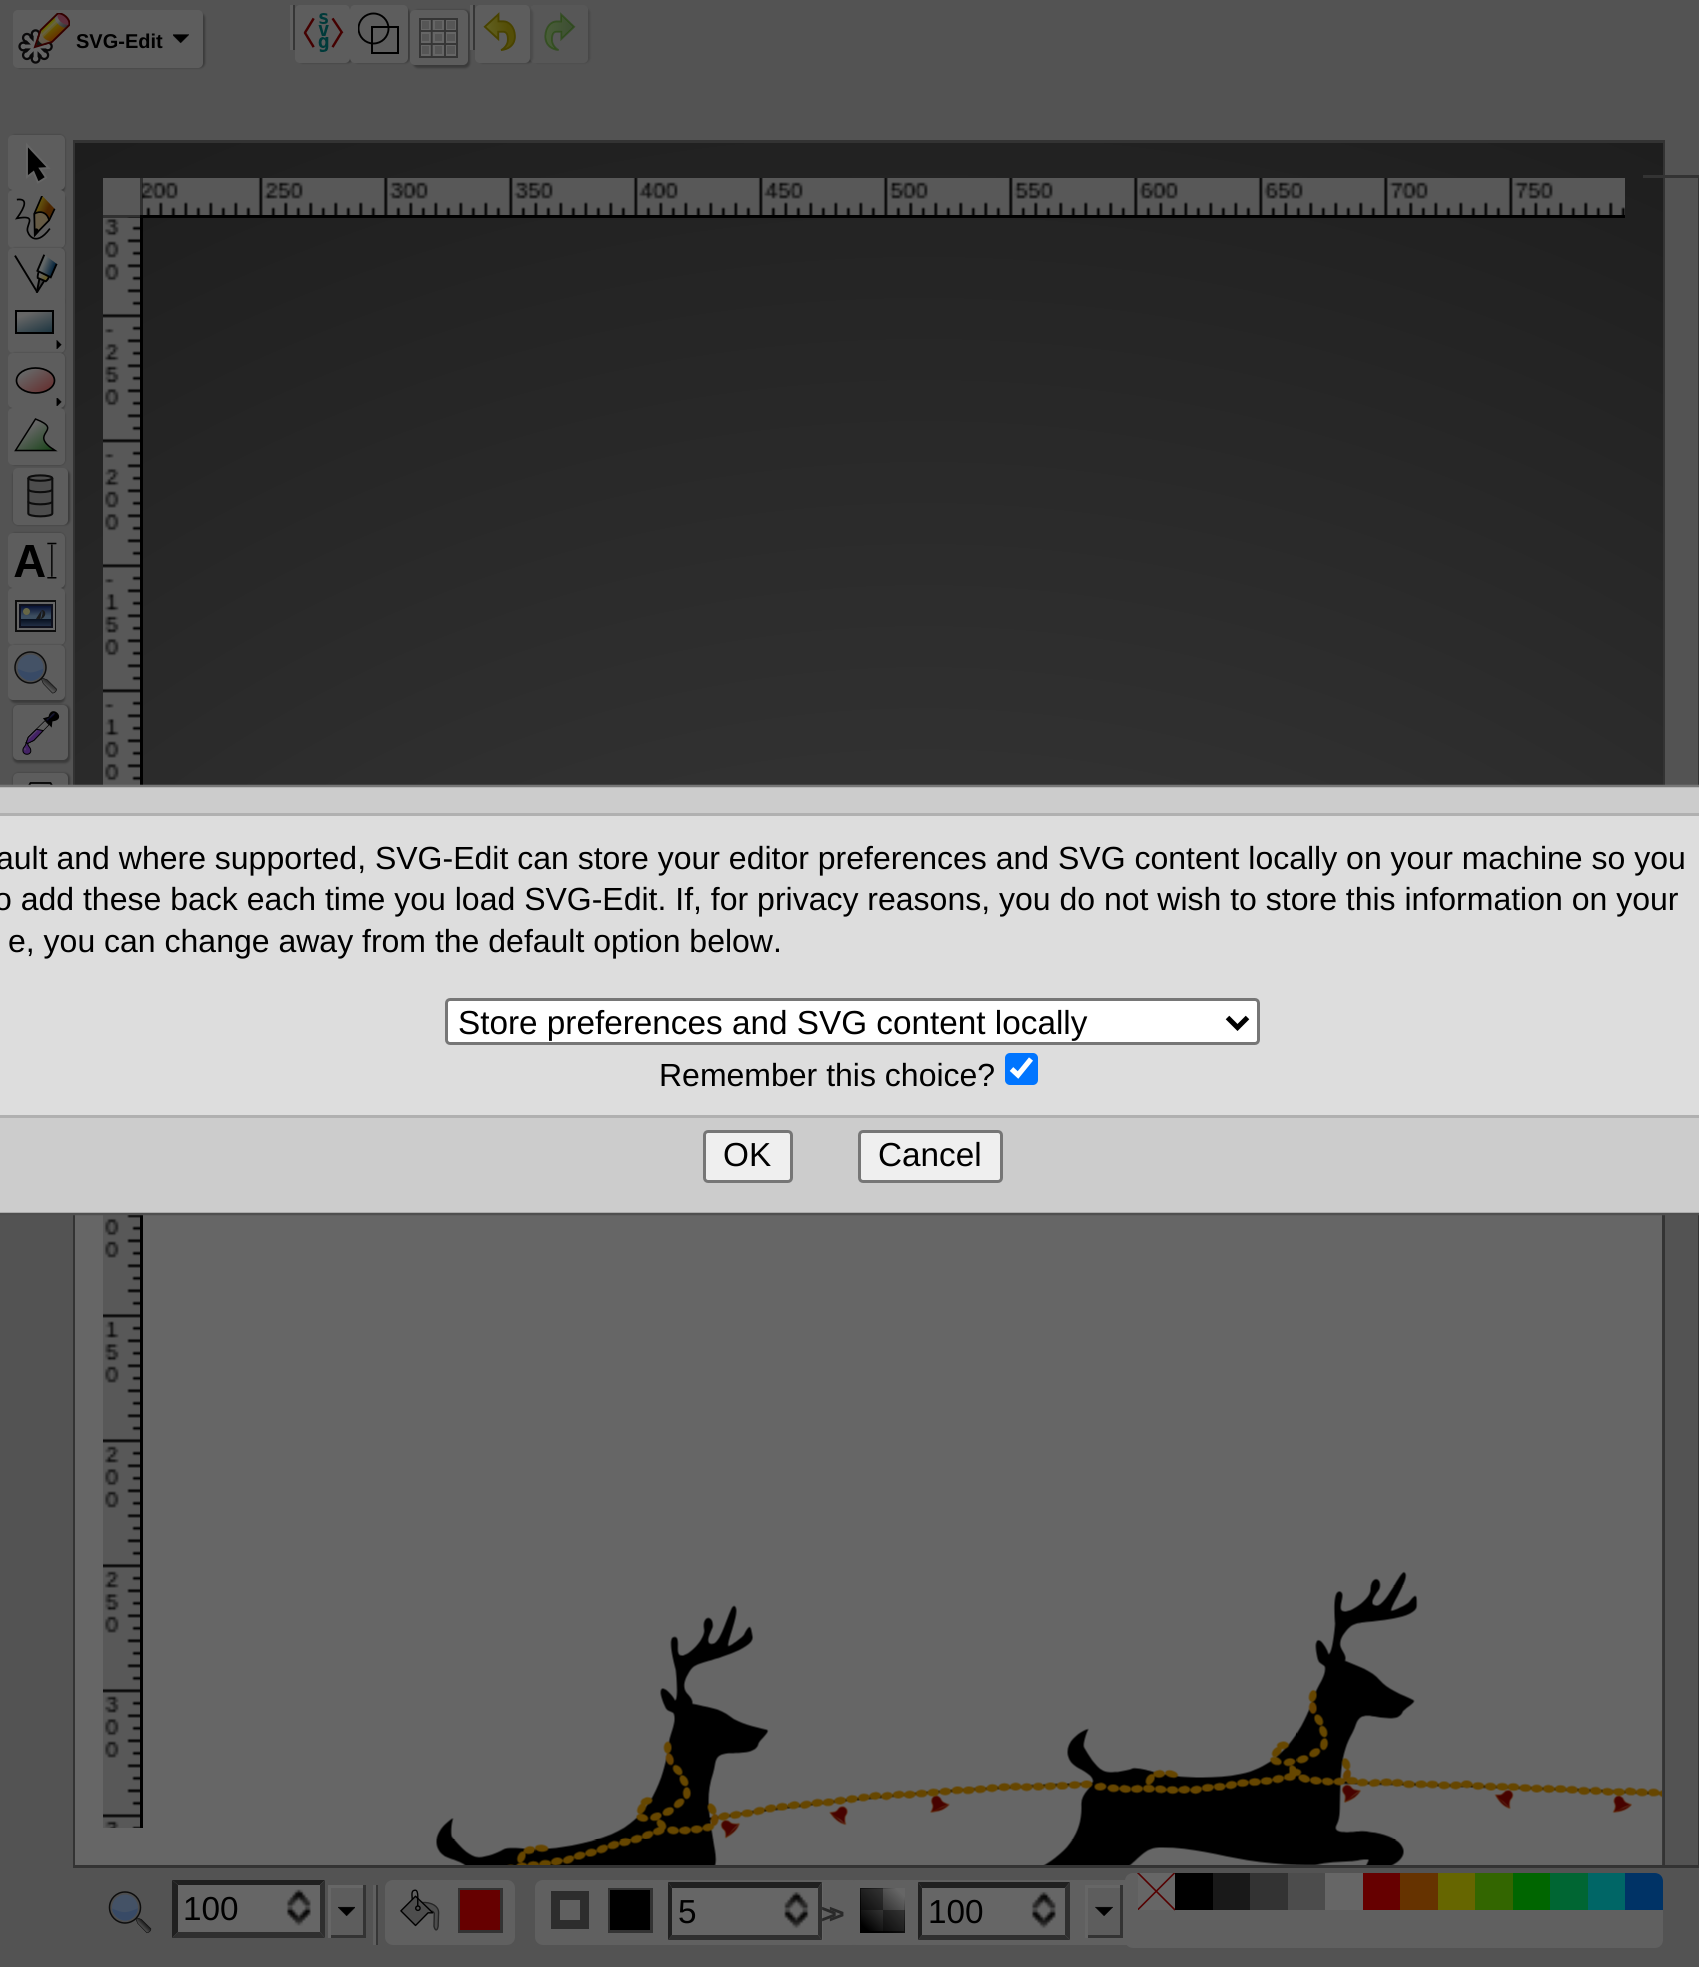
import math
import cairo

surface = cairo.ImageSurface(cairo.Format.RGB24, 1699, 1967)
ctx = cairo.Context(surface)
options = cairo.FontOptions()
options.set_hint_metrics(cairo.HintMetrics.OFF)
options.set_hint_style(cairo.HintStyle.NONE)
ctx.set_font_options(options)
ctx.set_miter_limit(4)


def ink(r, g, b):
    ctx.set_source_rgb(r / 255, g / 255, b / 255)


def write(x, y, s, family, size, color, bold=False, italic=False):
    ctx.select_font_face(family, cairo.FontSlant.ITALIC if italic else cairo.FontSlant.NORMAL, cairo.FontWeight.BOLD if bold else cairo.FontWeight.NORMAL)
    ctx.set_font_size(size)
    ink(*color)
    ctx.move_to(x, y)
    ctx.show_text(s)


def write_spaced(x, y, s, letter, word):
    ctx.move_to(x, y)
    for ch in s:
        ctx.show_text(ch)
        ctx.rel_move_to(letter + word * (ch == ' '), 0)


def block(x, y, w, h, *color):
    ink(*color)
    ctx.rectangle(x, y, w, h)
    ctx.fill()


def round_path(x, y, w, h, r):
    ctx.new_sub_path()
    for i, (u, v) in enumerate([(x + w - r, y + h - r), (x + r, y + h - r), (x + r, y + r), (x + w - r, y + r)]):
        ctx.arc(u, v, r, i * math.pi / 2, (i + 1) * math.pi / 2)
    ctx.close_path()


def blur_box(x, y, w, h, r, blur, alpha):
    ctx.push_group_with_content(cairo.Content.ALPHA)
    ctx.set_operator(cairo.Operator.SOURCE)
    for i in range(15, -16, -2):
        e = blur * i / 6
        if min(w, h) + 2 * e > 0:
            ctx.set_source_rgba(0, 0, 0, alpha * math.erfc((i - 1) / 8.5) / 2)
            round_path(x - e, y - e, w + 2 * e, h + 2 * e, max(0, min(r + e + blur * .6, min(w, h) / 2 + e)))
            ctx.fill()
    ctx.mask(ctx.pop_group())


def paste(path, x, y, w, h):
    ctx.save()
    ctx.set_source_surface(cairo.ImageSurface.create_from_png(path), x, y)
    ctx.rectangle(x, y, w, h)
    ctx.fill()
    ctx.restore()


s1 = dict(family="Liberation Sans", size=20, color=(0, 0, 0), bold=True)
s2 = dict(family="Liberation Sans", size=33.3, color=(0, 0, 0))
s3 = dict(family="Liberation Sans", size=32, color=(0, 0, 0))

ink(83, 83, 83)
ctx.paint()
ink(0, 0, 0)
blur_box(15, 13, 190, 55, 5, 1, 0.3)
ink(93, 93, 93)
round_path(13, 10, 190, 58, 5)
ctx.fill()
paste("pic1.png", 18, 13, 52, 51)
write(76, 48, "SVG-Edit", **s1)
paste("pic2.png", 173, 34, 16, 10)
block(293, 5, 2, 45, 54, 54, 54)
block(290, 5, 3, 45, 95, 95, 95)
ink(0, 0, 0)
blur_box(298, 8, 55, 55, 5, 1, 0.3)
ink(93, 93, 93)
round_path(295, 5, 55, 58, 5)
ctx.fill()
paste("pic3.png", 303, 13, 41, 39)
ink(0, 0, 0)
blur_box(353, 8, 57, 55, 5, 1, 0.3)
ink(93, 93, 93)
round_path(350, 5, 58, 58, 5)
ctx.fill()
ctx.save()
ctx.rectangle(358, 11, 43, 44)
ctx.clip()
ctx.arc(373.5, 28.5, 15, 0, 2 * math.pi)
ink(0, 0, 0)
ctx.set_line_width(1.9)
ctx.stroke()
ctx.restore()
ctx.rectangle(372, 27, 26, 26)
ink(0, 0, 0)
ctx.stroke()
ink(0, 0, 0)
blur_box(413, 10, 57, 58, 5, 1, 0.3)
ink(93, 93, 93)
round_path(410, 10, 58, 55, 5)
ctx.fill()
paste("pic4.png", 419, 18, 39, 40)
block(473, 5, 2, 45, 54, 54, 54)
block(470, 5, 3, 45, 95, 95, 95)
ink(0, 0, 0)
blur_box(478, 8, 55, 55, 5, 1, 0.3)
ink(93, 93, 93)
round_path(475, 5, 55, 58, 5)
ctx.fill()
paste("pic5.png", 483, 12, 33, 39)
ctx.save()
ctx.set_fill_rule(cairo.FillRule.EVEN_ODD)
ctx.new_path()
ctx.move_to(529, 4)
ctx.line_to(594, 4)
ctx.line_to(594, 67)
ctx.line_to(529, 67)
ctx.close_path()
ctx.move_to(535, 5)
ctx.line_to(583, 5)
ctx.curve_to(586, 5, 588, 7, 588, 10)
ctx.line_to(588, 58)
ctx.curve_to(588, 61, 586, 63, 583, 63)
ctx.line_to(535, 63)
ctx.curve_to(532, 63, 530, 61, 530, 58)
ctx.line_to(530, 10)
ctx.curve_to(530, 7, 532, 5, 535, 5)
ctx.close_path()
ctx.clip()
ink(0, 0, 0)
blur_box(533, 8, 57, 55, 5, 1, 0.15)
ctx.restore()
ctx.set_source_rgba(0.365, 0.365, 0.365, 0.5)
round_path(530, 5, 58, 58, 5)
ctx.fill()
paste("pic6.png", 544, 12, 32, 39)
ink(0, 0, 0)
blur_box(10, 135, 55, 58, 5, 1, 0.3)
ink(93, 93, 93)
round_path(8, 135, 57, 55, 5)
ctx.fill()
ink(0, 0, 0)
ctx.new_path()
ctx.move_to(27, 145)
ctx.line_to(27, 177)
ctx.line_to(33.5, 172)
ctx.line_to(38, 182.5)
ctx.line_to(46, 177.5)
ctx.line_to(40, 168.5)
ctx.line_to(48.5, 168)
ctx.close_path()
ctx.fill_preserve()
ink(102, 102, 102)
ctx.set_line_width(1.9)
ctx.stroke()
ink(0, 0, 0)
blur_box(10, 193, 55, 55, 5, 1, 0.3)
ink(93, 93, 93)
round_path(8, 190, 57, 58, 5)
ctx.fill()
paste("pic7.png", 15, 196, 41, 44)
ink(0, 0, 0)
blur_box(10, 248, 55, 57, 5, 1, 0.3)
ink(93, 93, 93)
round_path(8, 248, 57, 55, 5)
ctx.fill()
paste("pic8.png", 14, 254, 44, 39)
ink(0, 0, 0)
blur_box(10, 298, 55, 55, 5, 1, 0.3)
ink(93, 93, 93)
round_path(8, 295, 57, 58, 5)
ctx.fill()
gradient = cairo.LinearGradient(30, 313, 40, 339)
gradient.add_color_stop_rgba(0, 0.4, 0.4, 0.4, 1)
gradient.add_color_stop_rgba(1, 0.094, 0.196, 0.243, 1)
ctx.set_source(gradient)
ctx.rectangle(17, 312, 35, 20)
ctx.fill()
ctx.rectangle(16, 311, 37, 22)
ink(0, 0, 0)
ctx.set_line_width(2)
ctx.stroke()
paste("pic9.png", 56, 340, 6, 9)
ink(0, 0, 0)
blur_box(10, 353, 55, 57, 5, 1, 0.3)
ink(93, 93, 93)
round_path(8, 353, 57, 55, 5)
ctx.fill()
gradient = cairo.LinearGradient(23, 373, 42, 401)
gradient.add_color_stop_rgba(0, 0.4, 0.4, 0.4, 1)
gradient.add_color_stop_rgba(1, 0.4, 0.161, 0.161, 1)
ctx.set_source(gradient)
ctx.new_path()
ctx.move_to(35.5, 368)
ctx.curve_to(46, 368, 54.5, 373.5, 54.5, 380.5)
ctx.curve_to(54.5, 387.5, 46, 393, 35.5, 393)
ctx.curve_to(25, 393, 16.5, 387.5, 16.5, 380.5)
ctx.curve_to(16.5, 373.5, 25, 368, 35.5, 368)
ctx.close_path()
ctx.fill_preserve()
ink(0, 0, 0)
ctx.set_line_width(1.7)
ctx.stroke()
paste("pic10.png", 56, 398, 6, 8)
ink(0, 0, 0)
blur_box(10, 410, 55, 55, 5, 1, 0.3)
ink(93, 93, 93)
round_path(8, 408, 57, 57, 5)
ctx.fill()
gradient = cairo.LinearGradient(29, 428, 49, 455)
gradient.add_color_stop_rgba(0, 0.4, 0.4, 0.4, 1)
gradient.add_color_stop_rgba(1, 0.078, 0.259, 0.078, 1)
ctx.set_source(gradient)
ctx.new_path()
ctx.move_to(15, 451)
ctx.line_to(35, 419)
ctx.curve_to(66, 431, 26, 432, 55, 451)
ctx.close_path()
ctx.fill()
ctx.new_path()
ctx.move_to(15.5, 450.5)
ctx.line_to(35.5, 419)
ctx.curve_to(66, 431, 26, 432.5, 55, 450.5)
ctx.close_path()
ink(0, 0, 0)
ctx.set_line_width(1.5)
ctx.stroke()
ctx.rectangle(74.5, 141.5, 1589, 1725)
ink(51, 51, 51)
ctx.set_line_width(3)
ctx.stroke()
ink(0, 0, 0)
blur_box(13, 470, 57, 55, 5, 1, 0.3)
ink(93, 93, 93)
round_path(13, 468, 55, 57, 5)
ctx.fill()
paste("pic11.png", 27, 474, 27, 44)
ink(0, 0, 0)
blur_box(10, 533, 55, 57, 5, 1, 0.3)
ink(93, 93, 93)
round_path(8, 533, 57, 55, 5)
ctx.fill()
paste("pic12.png", 14, 542, 43, 37)
ink(0, 0, 0)
blur_box(10, 590, 55, 55, 5, 1, 0.3)
ink(93, 93, 93)
round_path(8, 588, 57, 57, 5)
ctx.fill()
paste("pic13.png", 15, 600, 41, 32)
ink(0, 0, 0)
blur_box(10, 645, 55, 58, 5, 1, 0.3)
ink(93, 93, 93)
round_path(8, 645, 57, 55, 5)
ctx.fill()
paste("pic14.png", 14, 651, 43, 43)
ink(0, 0, 0)
blur_box(13, 705, 57, 58, 5, 1, 0.3)
ink(93, 93, 93)
round_path(13, 705, 55, 55, 5)
ctx.fill()
paste("pic15.png", 22, 711, 38, 44)
ink(0, 0, 0)
blur_box(13, 773, 57, 57, 5, 1, 0.3)
ink(93, 93, 93)
round_path(13, 773, 55, 55, 5)
ctx.fill()
gradient = cairo.LinearGradient(35, 787, 56, 820)
gradient.add_color_stop_rgba(0, 0.4, 0.4, 0.4, 1)
gradient.add_color_stop_rgba(1, 0.161, 0.161, 0.161, 1)
ctx.set_source(gradient)
ctx.new_path()
ctx.move_to(30.5, 817.5)
ctx.line_to(20.5, 800.5)
ctx.line_to(30.5, 783)
ctx.line_to(50.5, 783)
ctx.line_to(60.5, 800.5)
ctx.line_to(50.5, 817.5)
ctx.close_path()
ctx.fill_preserve()
ink(0, 0, 0)
ctx.set_line_width(1.8)
ctx.stroke()
gradient = cairo.RadialGradient(924, 1835, 0, 924, 1835, 2500)
gradient.add_color_stop_rgba(0, 0.294, 0.294, 0.294, 1)
gradient.add_color_stop_rgba(1, 0.055, 0.055, 0.055, 1)
ctx.set_source(gradient)
ctx.rectangle(75, 143, 1588, 1722)
ctx.fill()
paste("pic16.png", 75, 1215, 1587, 650)
block(1643, 175, 56, 3, 51, 51, 51)
block(1698, 175, 1, 1693, 51, 51, 51)
block(1665, 1865, 34, 3, 51, 51, 51)
block(103, 178, 37, 37, 88, 88, 88)
block(143, 178, 1482, 37, 88, 88, 88)
block(140, 215, 1485, 3, 0, 0, 0)
block(140, 178, 3, 40, 48, 48, 48)
paste("pic17.png", 142, 178, 1483, 37)
block(103, 218, 37, 1610, 88, 88, 88)
block(103, 215, 40, 3, 48, 48, 48)
block(140, 215, 3, 1613, 0, 0, 0)
paste("pic18.png", 103, 217, 37, 1611)
paste("pic19.png", 108, 1891, 44, 43)
block(173, 1880, 152, 58, 102, 102, 102)
paste("pic20.png", 286, 1889, 25, 37)
ink(32, 32, 32)
ctx.new_path()
ctx.move_to(172, 1880)
ctx.line_to(325, 1880)
ctx.line_to(320, 1885)
ctx.line_to(178, 1885)
ctx.close_path()
ctx.fill()
ink(47, 47, 47)
ctx.new_path()
ctx.move_to(325, 1880)
ctx.line_to(325, 1938)
ctx.line_to(320, 1932)
ctx.line_to(320, 1885)
ctx.close_path()
ctx.fill()
ctx.new_path()
ctx.move_to(325, 1938)
ctx.line_to(172, 1938)
ctx.line_to(178, 1932)
ctx.line_to(320, 1932)
ctx.close_path()
ctx.fill()
ink(32, 32, 32)
ctx.new_path()
ctx.move_to(172, 1938)
ctx.line_to(172, 1880)
ctx.line_to(178, 1885)
ctx.line_to(178, 1932)
ctx.close_path()
ctx.fill()
write(183, 1920, "100", **s2)
block(331, 1888, 32, 47, 93, 93, 93)
block(328, 1885, 37, 3, 102, 102, 102)
block(363, 1885, 3, 53, 51, 51, 51)
block(328, 1935, 37, 3, 51, 51, 51)
block(328, 1885, 3, 53, 102, 102, 102)
paste("pic21.png", 338, 1906, 17, 10)
block(376, 1885, 2, 60, 54, 54, 54)
block(373, 1885, 3, 60, 95, 95, 95)
ink(96, 96, 96)
round_path(385, 1880, 130, 65, 8)
ctx.fill()
paste("pic22.png", 400, 1889, 40, 42)
ctx.rectangle(459.5, 1889.5, 42, 42)
ink(51, 51, 51)
ctx.set_line_width(3)
ctx.stroke()
block(460, 1890, 40, 40, 102, 0, 0)
ink(96, 96, 96)
round_path(848, 1880, 287, 65, 8)
ctx.fill()
block(860, 1888, 45, 45, 102, 102, 102)
block(860, 1888, 23, 22, 64, 64, 64)
block(883, 1910, 22, 23, 64, 64, 64)
gradient = cairo.LinearGradient(865, 1928, 900, 1892)
gradient.add_color_stop_rgba(0, 0, 0, 0, 1)
gradient.add_color_stop_rgba(1, 0, 0, 0, 0)
ctx.set_source(gradient)
ctx.rectangle(860, 1888, 45, 45)
ctx.fill()
ctx.save()
ctx.rectangle(860, 1888, 45, 45)
ctx.clip()
ctx.rectangle(860, 1888, 45, 44)
ctx.set_line_width(2)
ctx.stroke()
ctx.restore()
ink(96, 96, 96)
round_path(535, 1880, 325, 65, 8)
ctx.fill()
ctx.rectangle(555.5, 1895.5, 29, 29)
ink(45, 45, 45)
ctx.set_line_width(9)
ctx.stroke()
ctx.rectangle(609.5, 1889.5, 42, 42)
ink(51, 51, 51)
ctx.set_line_width(3)
ctx.stroke()
block(610, 1890, 40, 40, 0, 0, 0)
block(668, 1883, 155, 57, 102, 102, 102)
paste("pic23.png", 784, 1891, 25, 38)
ink(32, 32, 32)
ctx.new_path()
ctx.move_to(668, 1882)
ctx.line_to(822, 1882)
ctx.line_to(818, 1888)
ctx.line_to(672, 1888)
ctx.close_path()
ctx.fill()
ink(47, 47, 47)
ctx.new_path()
ctx.move_to(822, 1882)
ctx.line_to(822, 1940)
ctx.line_to(818, 1935)
ctx.line_to(818, 1888)
ctx.close_path()
ctx.fill()
ctx.new_path()
ctx.move_to(822, 1940)
ctx.line_to(668, 1940)
ctx.line_to(672, 1935)
ctx.line_to(818, 1935)
ctx.close_path()
ctx.fill()
ink(32, 32, 32)
ctx.new_path()
ctx.move_to(668, 1940)
ctx.line_to(668, 1882)
ctx.line_to(672, 1888)
ctx.line_to(672, 1935)
ctx.close_path()
ctx.fill()
write(678, 1923, "5", **s2)
ctx.select_font_face("Liberation Sans", cairo.FontSlant.NORMAL, cairo.FontWeight.BOLD)
ctx.set_font_size(27)
ink(41, 41, 41)
write_spaced(821, 1923, ">>", -8, 0)
block(918, 1883, 152, 57, 102, 102, 102)
paste("pic24.png", 1031, 1891, 25, 38)
ink(32, 32, 32)
ctx.new_path()
ctx.move_to(918, 1882)
ctx.line_to(1070, 1882)
ctx.line_to(1065, 1888)
ctx.line_to(922, 1888)
ctx.close_path()
ctx.fill()
ink(47, 47, 47)
ctx.new_path()
ctx.move_to(1070, 1882)
ctx.line_to(1070, 1940)
ctx.line_to(1065, 1935)
ctx.line_to(1065, 1888)
ctx.close_path()
ctx.fill()
ctx.new_path()
ctx.move_to(1070, 1940)
ctx.line_to(918, 1940)
ctx.line_to(922, 1935)
ctx.line_to(1065, 1935)
ctx.close_path()
ctx.fill()
ink(32, 32, 32)
ctx.new_path()
ctx.move_to(918, 1940)
ctx.line_to(918, 1882)
ctx.line_to(922, 1888)
ctx.line_to(922, 1935)
ctx.close_path()
ctx.fill()
write(928, 1923, "100", **s2)
block(1088, 1888, 32, 47, 93, 93, 93)
block(1085, 1885, 38, 3, 102, 102, 102)
block(1120, 1885, 3, 53, 51, 51, 51)
block(1085, 1935, 38, 3, 51, 51, 51)
block(1085, 1885, 3, 53, 102, 102, 102)
paste("pic25.png", 1095, 1906, 18, 10)
ink(96, 96, 96)
round_path(1125, 1873, 538, 75, 8)
ctx.fill()
block(1138, 1873, 37, 37, 102, 102, 102)
ctx.save()
round_path(1125, 1873, 538, 75, 8)
ctx.clip()
ctx.new_path()
ctx.move_to(1137.5, 1872.5)
ctx.line_to(1175, 1910)
ink(85, 0, 0)
ctx.set_line_width(1.6)
ctx.stroke()
ctx.restore()
ctx.save()
ctx.rectangle(1138, 1873, 37, 37)
ctx.clip()
ctx.new_path()
ctx.move_to(1175, 1872.5)
ctx.line_to(1137.5, 1910)
ink(85, 0, 0)
ctx.set_line_width(1.6)
ctx.stroke()
ctx.restore()
block(1175, 1873, 38, 37, 0, 0, 0)
block(1213, 1873, 37, 37, 25, 25, 25)
block(1250, 1873, 38, 37, 51, 51, 51)
block(1288, 1873, 37, 37, 76, 76, 76)
block(1325, 1873, 38, 37, 102, 102, 102)
block(1363, 1873, 37, 37, 102, 0, 0)
block(1400, 1873, 38, 37, 102, 51, 0)
block(1438, 1873, 37, 37, 102, 102, 0)
block(1475, 1873, 38, 37, 51, 102, 0)
block(1513, 1873, 37, 37, 0, 102, 0)
block(1550, 1873, 38, 37, 0, 102, 51)
block(1588, 1873, 37, 37, 0, 102, 102)
ink(0, 51, 102)
ctx.new_path()
ctx.move_to(1625, 1873)
ctx.line_to(1655, 1873)
ctx.curve_to(1659.5, 1873, 1663, 1876.5, 1663, 1881)
ctx.line_to(1663, 1910)
ctx.line_to(1625, 1910)
ctx.close_path()
ctx.fill()
block(0, 787, 1699, 426, 204, 204, 204)
ctx.new_path()
ctx.move_to(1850.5, 789.5)
ctx.curve_to(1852.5, 791.5, 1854, 794.5, 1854, 797.5)
ctx.line_to(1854, 1202.5)
ctx.curve_to(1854, 1205.5, 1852.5, 1208.5, 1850.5, 1210.5)
ctx.curve_to(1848.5, 1212.5, 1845.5, 1214, 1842.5, 1214)
ctx.line_to(-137.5, 1214)
ctx.curve_to(-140.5, 1214, -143.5, 1212.5, -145.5, 1210.5)
ink(79, 79, 79)
ctx.set_line_width(2.5)
ctx.stroke()
ctx.new_path()
ctx.move_to(-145.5, 1210.5)
ctx.curve_to(-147.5, 1208.5, -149, 1205.5, -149, 1202.5)
ctx.line_to(-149, 797.5)
ctx.curve_to(-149, 794.5, -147.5, 791.5, -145.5, 789.5)
ctx.curve_to(-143.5, 787.5, -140.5, 786, -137.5, 786)
ctx.line_to(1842.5, 786)
ctx.curve_to(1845.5, 786, 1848.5, 787.5, 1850.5, 789.5)
ink(119, 119, 119)
ctx.stroke()
ink(221, 221, 221)
ctx.rectangle(-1.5, 814.5, 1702, 302)
ctx.fill_preserve()
ink(176, 176, 176)
ctx.set_line_width(3)
ctx.stroke()
write(-4, 869, "ault and where supported, SVG-Edit can store your editor preferences and SVG content locally on your machine so you", **s3)
write(-6, 910, "o add these back each time you load SVG-Edit. If, for privacy reasons, you do not wish to store this information on your", **s3)
write(8, 952, "e, you can change away from the default option below.", **s3)
ink(255, 255, 255)
round_path(446.5, 999.5, 812, 44, 3.5)
ctx.fill_preserve()
ink(118, 118, 118)
ctx.stroke()
ctx.new_path()
ctx.move_to(1227.5, 1017.5)
ctx.line_to(1237.5, 1027.5)
ctx.line_to(1247.5, 1017.5)
ink(0, 0, 0)
ctx.set_line_width(5)
ctx.stroke()
write(458, 1034, "Store preferences and SVG content locally", **s2)
write(659, 1086, "Remember this choice?", **s3)
ink(0, 117, 255)
round_path(1005, 1053, 33, 32, 5)
ctx.fill()
ctx.new_path()
ctx.move_to(1011.5, 1069)
ctx.line_to(1018, 1075)
ctx.line_to(1031, 1059)
ink(255, 255, 255)
ctx.set_line_width(5.2)
ctx.stroke()
ink(239, 239, 239)
round_path(704.5, 1131.5, 87, 50, 3.5)
ctx.fill_preserve()
ink(118, 118, 118)
ctx.set_line_width(3)
ctx.stroke()
write(723, 1166, "OK", **s2)
ink(239, 239, 239)
round_path(859.5, 1131.5, 142, 50, 3.5)
ctx.fill_preserve()
ink(118, 118, 118)
ctx.stroke()
write(878, 1166, "Cancel", **s2)
surface.write_to_png("screenshot.png")
